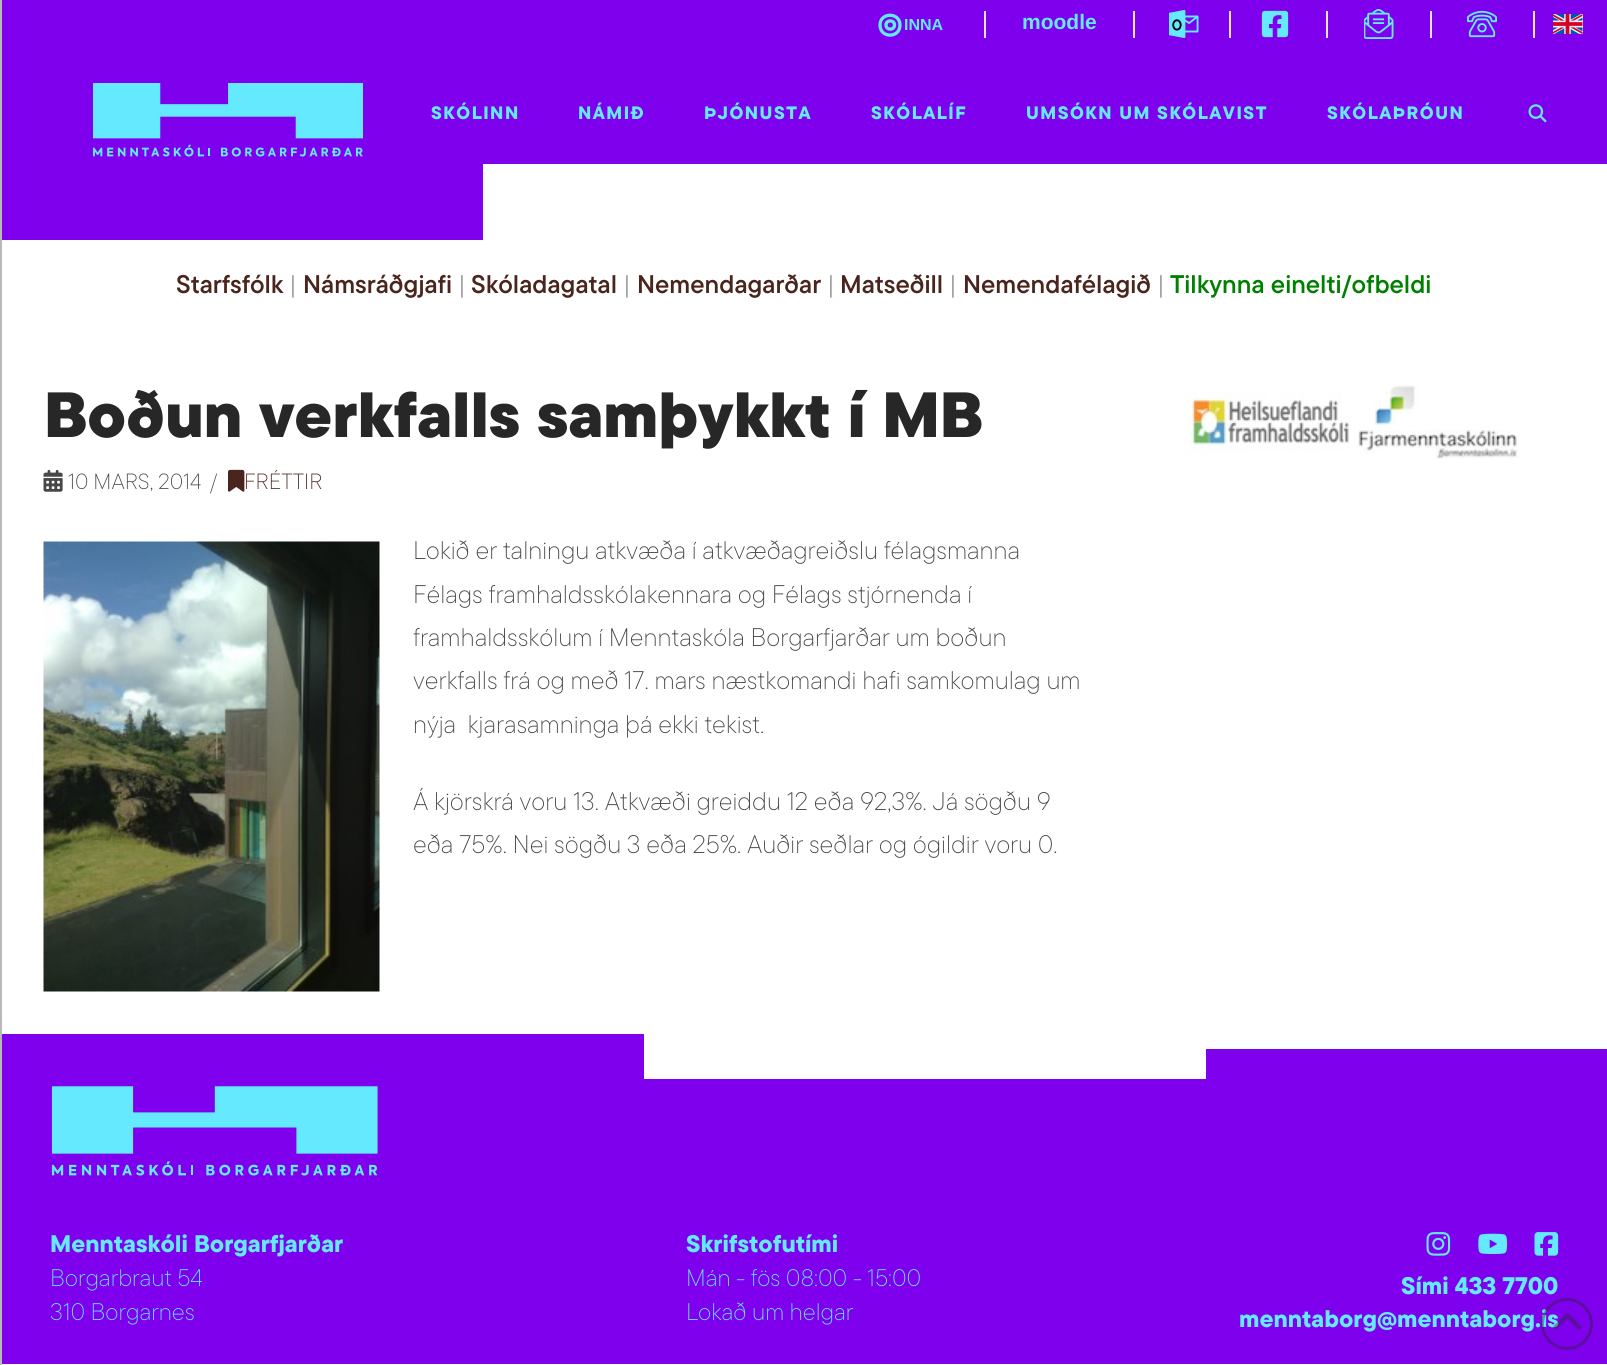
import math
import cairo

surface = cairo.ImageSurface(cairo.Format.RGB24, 1607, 1365)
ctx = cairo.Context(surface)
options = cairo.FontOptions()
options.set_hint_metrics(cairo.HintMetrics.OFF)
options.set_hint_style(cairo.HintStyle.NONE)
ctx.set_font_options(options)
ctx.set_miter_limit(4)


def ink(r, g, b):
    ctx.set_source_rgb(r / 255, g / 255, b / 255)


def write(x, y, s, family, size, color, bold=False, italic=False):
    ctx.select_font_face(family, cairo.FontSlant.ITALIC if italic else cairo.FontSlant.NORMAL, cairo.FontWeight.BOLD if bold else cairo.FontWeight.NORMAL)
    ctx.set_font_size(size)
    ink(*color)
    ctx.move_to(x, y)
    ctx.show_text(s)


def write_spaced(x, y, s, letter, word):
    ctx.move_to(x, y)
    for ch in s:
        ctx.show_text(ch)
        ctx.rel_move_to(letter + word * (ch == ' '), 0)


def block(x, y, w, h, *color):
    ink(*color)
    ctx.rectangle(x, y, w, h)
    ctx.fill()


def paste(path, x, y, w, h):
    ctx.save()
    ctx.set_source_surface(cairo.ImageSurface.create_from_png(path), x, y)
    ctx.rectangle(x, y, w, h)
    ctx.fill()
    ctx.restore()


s1 = dict(family="Liberation Sans", size=16, color=(100, 233, 255), bold=True)
s2 = dict(family="Liberation Sans", size=21, color=(100, 233, 255), bold=True)
s3 = dict(family="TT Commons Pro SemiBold", size=25.5, color=(74, 37, 29))
s4 = dict(family="TT Commons Pro ExtraLight", size=25.5, color=(71, 71, 72))
s5 = dict(family="TT Commons Pro SemiBold", size=25.5, color=(0, 128, 0))
s6 = dict(family="TT Commons Pro Black", size=63.75, color=(39, 39, 39))
s7 = dict(family="TT Commons Pro ExtraLight", size=22, color=(71, 71, 72))
s8 = dict(family="TT Commons Pro ExtraLight", size=22, color=(74, 37, 29))
s9 = dict(family="TT Commons Pro ExtraBold", size=24, color=(100, 233, 255))
s10 = dict(family="TT Commons Pro ExtraLight", size=24, color=(100, 233, 255))

ink(255, 255, 255)
ctx.paint()
block(0, 0, 2, 1365, 185, 185, 185)
block(2, 0, 1605, 164, 126, 0, 237)
write(904, 30, "INNA", **s1)
ctx.new_path()
ctx.move_to(900, 25)
ctx.curve_to(900, 38.5, 880, 38.5, 880, 25)
ctx.curve_to(880, 12, 900, 12, 900, 25)
ctx.close_path()
ctx.move_to(894.5, 25)
ctx.curve_to(894.5, 30.5, 886, 30.5, 886, 25)
ctx.curve_to(886, 19.5, 894.5, 19.5, 894.5, 25)
ctx.close_path()
ctx.set_line_width(3.3)
ctx.stroke()
block(984, 11, 2, 27, 229, 229, 229)
write(1022, 29, "moodle", **s2)
block(1133, 11, 2, 27, 229, 229, 229)
paste("pic1.png", 1169, 9, 30, 30)
block(1229, 11, 2, 27, 229, 229, 229)
paste("pic2.png", 1261, 10, 28, 28)
block(1326, 11, 2, 27, 229, 229, 229)
paste("pic3.png", 1364, 9, 30, 30)
block(1430, 11, 2, 27, 229, 229, 229)
paste("pic4.png", 1467, 10, 30, 28)
block(1533, 11, 2, 27, 229, 229, 229)
paste("pic5.png", 1553, 14, 30, 20)
paste("pic6.png", 93, 83, 270, 74)
ctx.select_font_face("TT Commons Pro ExtraBold")
ctx.set_font_size(18)
ink(100, 233, 255)
write_spaced(431, 119, "SKÓLINN", 1.5, 0)
write_spaced(578, 119, "NÁMIÐ", 1.5, 0)
write_spaced(704, 119, "ÞJÓNUSTA", 1.5, 0)
write_spaced(871, 119, "SKÓLALÍF", 1.5, 0)
write_spaced(1026, 119, "UMSÓKN UM SKÓLAVIST", 1.5, 0)
write_spaced(1327, 119, "SKÓLAÞRÓUN", 1.5, 0)
paste("pic7.png", 1528, 104, 19, 19)
block(2, 164, 481, 76, 126, 0, 237)
write(176, 293, "Starfsfólk", **s3)
write(289, 293, "|", **s4)
write(303, 293, "Námsráðgjafi", **s3)
write(458, 293, "|", **s4)
write(471, 293, "Skóladagatal", **s3)
write(623, 293, "|", **s4)
write(637, 293, "Nemendagarðar", **s3)
write(827, 293, "|", **s4)
write(840, 293, "Matseðill", **s3)
write(949, 293, "|", **s4)
write(963, 293, "Nemendafélagið", **s3)
write(1157, 293, "|", **s4)
write(1170, 293, "Tilkynna einelti/ofbeldi", **s5)
write(44, 437, "Boðun verkfalls samþykkt í MB", **s6)
paste("pic8.png", 43, 469, 20, 23)
write(68, 489, "10 MARS, 2014", **s7)
write(210, 489, "/", **s7)
paste("pic9.png", 228, 469, 17, 23)
write(244, 489, "FRÉTTIR", **s8)
paste("pic10.png", 43, 541, 337, 451)
write(413, 559, "Lokið er talningu atkvæða í atkvæðagreiðslu félagsmanna", **s4)
write(413, 603, "Félags framhaldsskólakennara og Félags stjórnenda í", **s4)
write(413, 646, "framhaldsskólum í Menntaskóla Borgarfjarðar um boðun", **s4)
write(413, 689, "verkfalls frá og með 17. mars næstkomandi hafi samkomulag um", **s4)
write(413, 733, "nýja  kjarasamninga þá ekki tekist.", **s4)
write(413, 810, "Á kjörskrá voru 13. Atkvæði greiddu 12 eða 92,3%. Já sögðu 9", **s4)
write(413, 853, "eða 75%. Nei sögðu 3 eða 25%. Auðir seðlar og ógildir voru 0.", **s4)
paste("pic11.png", 1185, 391, 165, 63)
paste("pic12.png", 1358, 385, 161, 74)
block(2, 1034, 642, 45, 126, 0, 237)
block(1206, 1049, 401, 30, 126, 0, 237)
block(2, 1079, 1605, 285, 126, 0, 237)
paste("pic13.png", 51, 1086, 327, 90)
write(50, 1252, "Menntaskóli Borgarfjarðar", **s9)
write(50, 1286, "Borgarbraut 54", **s10)
write(50, 1320, "310 Borgarnes", **s10)
write(686, 1252, "Skrifstofutími", **s9)
write(686, 1286, "Mán - fös 08:00 - 15:00", **s10)
write(686, 1320, "Lokað um helgar", **s10)
paste("pic14.png", 1426, 1232, 25, 24)
paste("pic15.png", 1478, 1233, 30, 21)
paste("pic16.png", 1534, 1232, 25, 24)
write(1401, 1294, "Sími 433 7700", **s9)
write(1239, 1327, "menntaborg@menntaborg.is", **s9)
ctx.new_path()
ctx.arc(1567, 1324, 24.5, 0, 2 * math.pi)
ctx.set_source_rgba(0.153, 0.153, 0.153, 0.38)
ctx.set_line_width(3)
ctx.stroke()
paste("pic17.png", 1553, 1313, 29, 17)
surface.write_to_png("screenshot.png")
